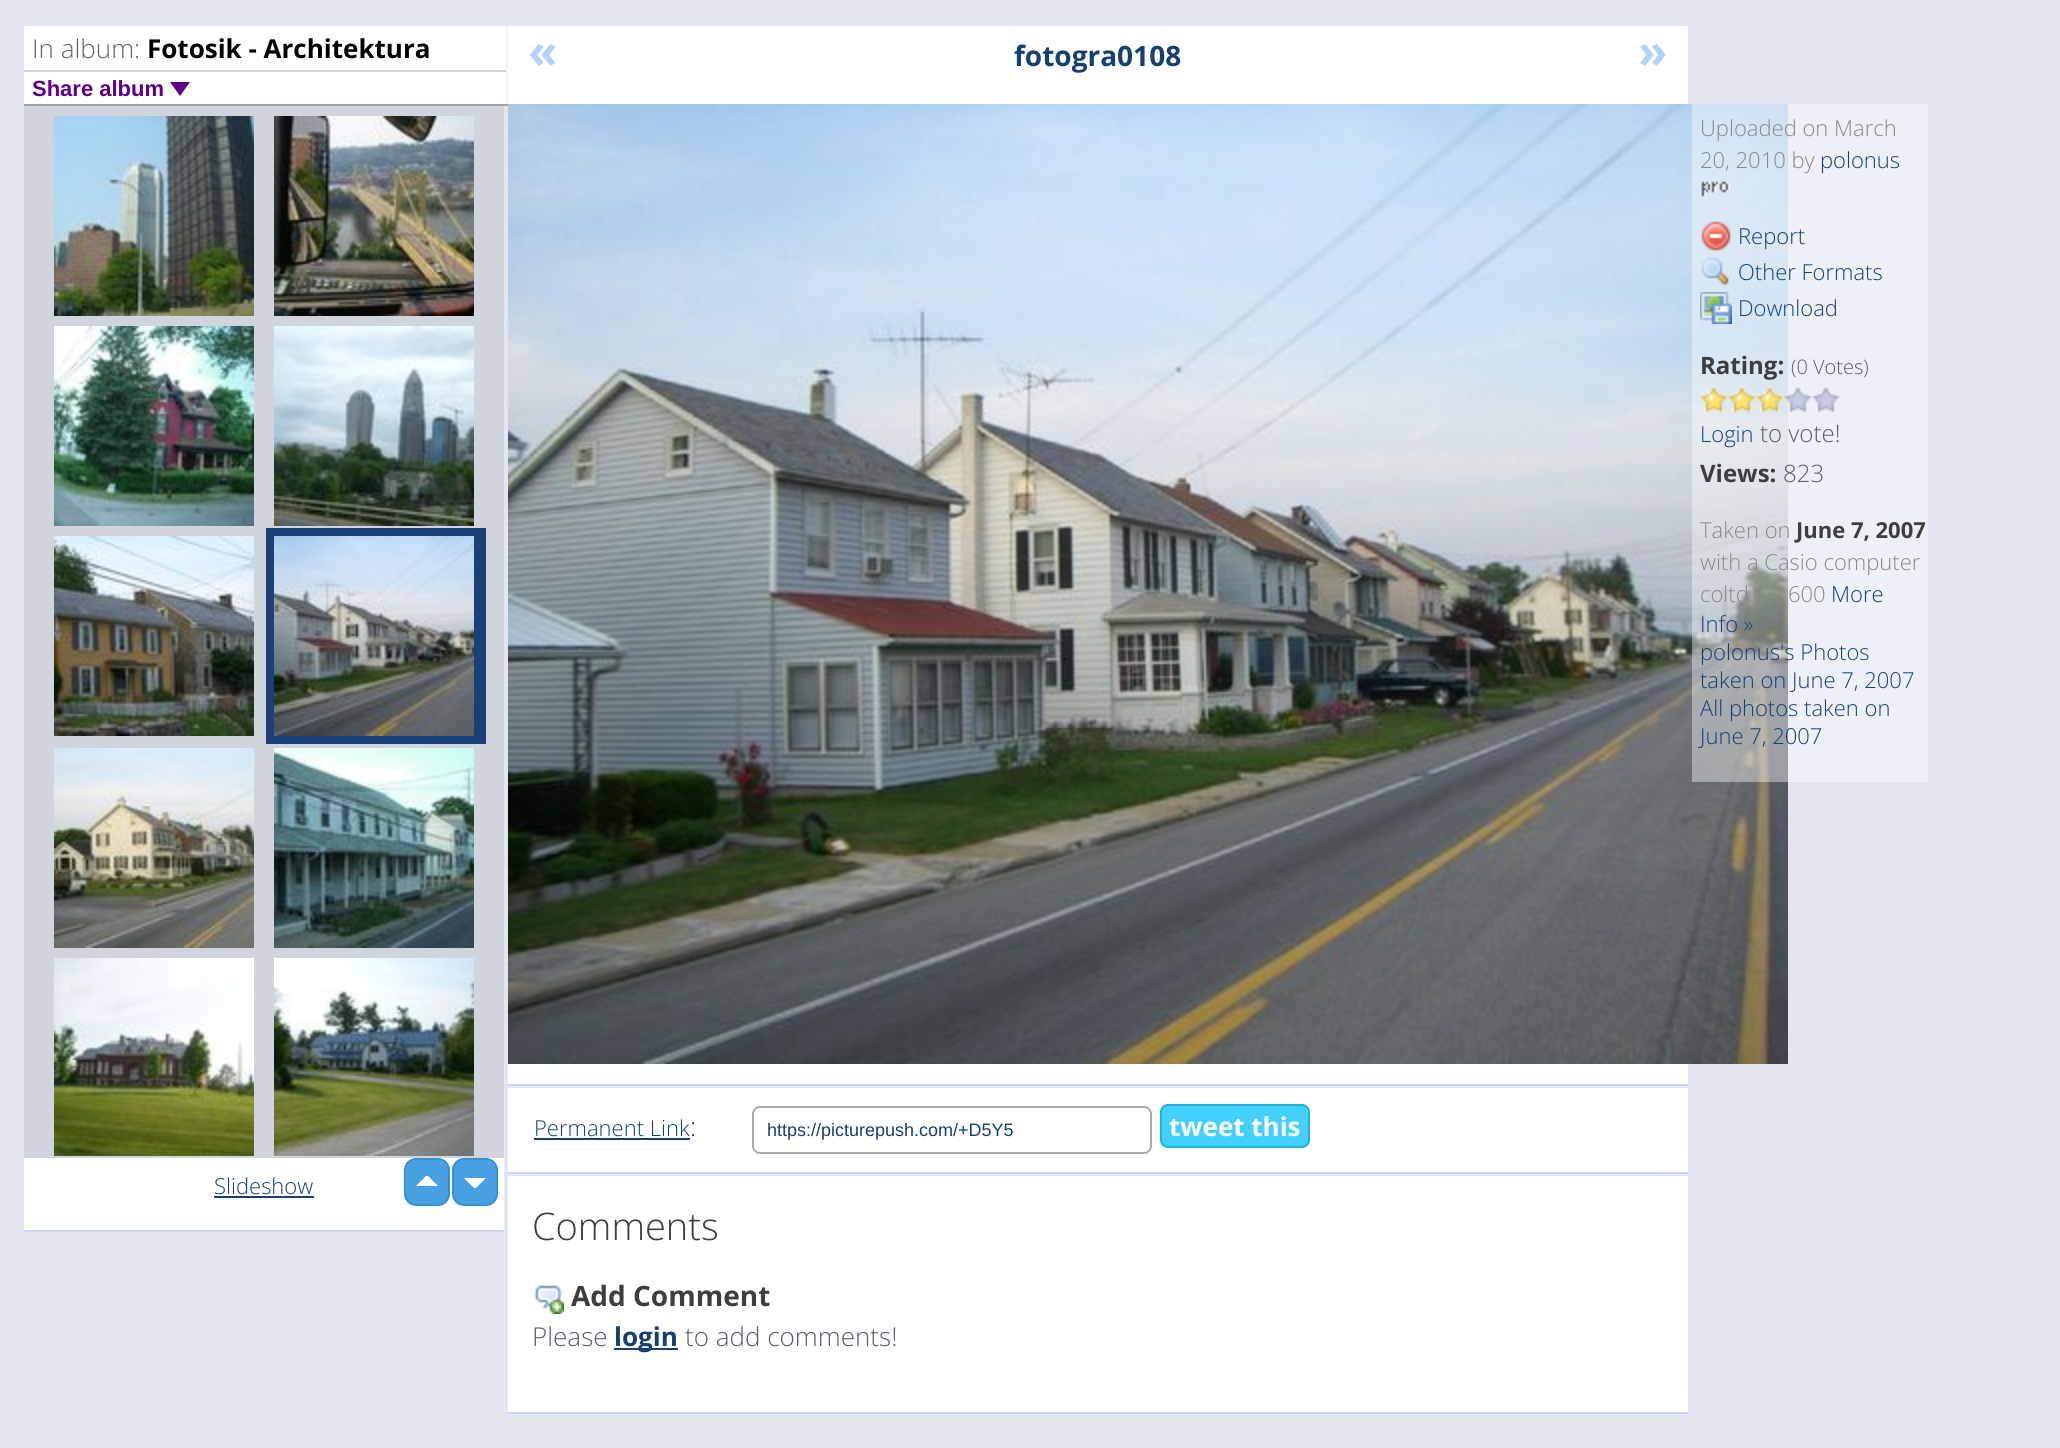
import math
import cairo

surface = cairo.ImageSurface(cairo.Format.RGB24, 2060, 1448)
ctx = cairo.Context(surface)
options = cairo.FontOptions()
options.set_hint_metrics(cairo.HintMetrics.OFF)
options.set_hint_style(cairo.HintStyle.NONE)
ctx.set_font_options(options)
ctx.set_miter_limit(4)


def ink(r, g, b):
    ctx.set_source_rgb(r / 255, g / 255, b / 255)


def write(x, y, s, family, size, color, bold=False, italic=False):
    ctx.select_font_face(family, cairo.FontSlant.ITALIC if italic else cairo.FontSlant.NORMAL, cairo.FontWeight.BOLD if bold else cairo.FontWeight.NORMAL)
    ctx.set_font_size(size)
    ink(*color)
    ctx.move_to(x, y)
    ctx.show_text(s)


def block(x, y, w, h, *color):
    ink(*color)
    ctx.rectangle(x, y, w, h)
    ctx.fill()


def round_path(x, y, w, h, r):
    ctx.new_sub_path()
    for i, (u, v) in enumerate([(x + w - r, y + h - r), (x + r, y + h - r), (x + r, y + r), (x + w - r, y + r)]):
        ctx.arc(u, v, r, i * math.pi / 2, (i + 1) * math.pi / 2)
    ctx.close_path()


def paste(path, x, y, w, h):
    ctx.save()
    ctx.set_source_surface(cairo.ImageSurface.create_from_png(path), x, y)
    ctx.rectangle(x, y, w, h)
    ctx.fill()
    ctx.restore()


s1 = dict(family="Open Sans Light", size=26, color=(102, 102, 102))
s2 = dict(family="Open Sans", size=26, color=(0, 0, 0), bold=True)
s3 = dict(family="Liberation Sans", size=22, color=(94, 0, 133), bold=True)
s4 = dict(family="Open Sans Light", size=22, color=(22, 63, 115))
s5 = dict(family="Open Sans", size=48, color=(176, 212, 254), bold=True)
s6 = dict(family="Open Sans", size=28, color=(22, 63, 115), bold=True)
s7 = dict(family="Open Sans Light", size=22, color=(136, 136, 136))
s8 = dict(family="Open Sans", size=24, color=(62, 62, 65), bold=True)
s9 = dict(family="Open Sans Light", size=20, color=(90, 92, 108))
s10 = dict(family="Open Sans Light", size=24, color=(90, 92, 108))
s11 = dict(family="Open Sans", size=22, color=(62, 62, 65), bold=True)
s12 = dict(family="Open Sans Light", size=26, color=(62, 62, 65))
s13 = dict(family="Liberation Sans", size=18, color=(22, 63, 115))
s14 = dict(family="Open Sans", size=26, color=(255, 255, 255), bold=True)
s15 = dict(family="Open Sans Light", size=38, color=(62, 62, 65))
s16 = dict(family="Open Sans", size=28, color=(62, 62, 65), bold=True)
s17 = dict(family="Open Sans Light", size=26, color=(90, 92, 108))
s18 = dict(family="Open Sans", size=26, color=(22, 63, 115), bold=True)

ink(227, 230, 241)
ctx.paint()
block(24, 26, 482, 78, 255, 255, 255)
block(506, 26, 2, 80, 243, 243, 243)
block(24, 104, 484, 2, 164, 164, 164)
write(32, 58, "In album:", **s1)
write(147, 58, "Fotosik - Architektura", **s2)
block(24, 70, 482, 2, 208, 208, 224)
write(32, 96, "Share album", **s3)
ctx.new_path()
ctx.move_to(170, 82)
ctx.line_to(190, 82)
ctx.line_to(180, 96)
ctx.close_path()
ctx.fill()
block(24, 106, 480, 1052, 208, 213, 221)
block(24, 1230, 480, 2, 207, 212, 255)
paste("pic1.png", 54, 116, 200, 200)
paste("pic2.png", 274, 116, 200, 200)
paste("pic3.png", 54, 326, 200, 200)
paste("pic4.png", 274, 326, 200, 200)
paste("pic5.png", 54, 536, 200, 200)
block(266, 528, 220, 216, 25, 64, 119)
paste("pic6.png", 274, 536, 200, 200)
paste("pic7.png", 54, 748, 200, 200)
paste("pic8.png", 274, 748, 200, 200)
paste("pic9.png", 54, 958, 200, 198)
paste("pic10.png", 274, 958, 200, 198)
block(24, 1158, 480, 72, 255, 255, 255)
ink(72, 160, 227)
round_path(405, 1159, 44, 46, 11)
ctx.fill_preserve()
ink(56, 144, 211)
ctx.stroke()
ink(255, 255, 255)
ctx.new_path()
ctx.move_to(438, 1186)
ctx.line_to(416, 1186)
ctx.line_to(426, 1176)
ctx.line_to(428, 1176)
ctx.close_path()
ctx.fill()
ink(72, 160, 227)
round_path(453, 1159, 44, 46, 11)
ctx.fill_preserve()
ink(56, 144, 211)
ctx.stroke()
ink(255, 255, 255)
ctx.new_path()
ctx.move_to(464, 1178)
ctx.line_to(486, 1178)
ctx.line_to(476, 1188)
ctx.line_to(474, 1188)
ctx.close_path()
ctx.fill()
write(214, 1194, "Slideshow", **s4)
block(214, 1196, 100, 2, 22, 63, 115)
block(508, 26, 1180, 1058, 255, 255, 255)
block(508, 1084, 1180, 2, 207, 212, 255)
write(528, 68, "«", **s5)
write(1014, 66, "fotogra0108", **s6)
write(1638, 68, "»", **s5)
paste("pic11.png", 508, 104, 1280, 960)
ctx.set_source_rgba(1, 1, 1, 0.4)
ctx.rectangle(1692, 104, 236, 678)
ctx.fill()
write(1700, 136, "Uploaded on March", **s7)
write(1700, 168, "20, 2010 by", **s7)
write(1820, 168, "polonus", **s4)
paste("pic12.png", 1701, 181, 30, 16)
paste("pic13.png", 1701, 221, 30, 30)
write(1738, 244, "Report", **s4)
paste("pic14.png", 1701, 257, 28, 29)
write(1738, 280, "Other Formats", **s4)
paste("pic15.png", 1700, 292, 32, 32)
write(1738, 316, "Download", **s4)
write(1700, 374, "Rating:", **s8)
write(1791, 374, "(0 Votes)", **s9)
paste("pic16.png", 1700, 386, 28, 27)
paste("pic17.png", 1728, 386, 28, 27)
paste("pic18.png", 1756, 386, 28, 27)
paste("pic19.png", 1784, 386, 28, 27)
paste("pic20.png", 1812, 386, 28, 27)
write(1700, 442, "Login", **s4)
write(1760, 442, "to vote!", **s10)
write(1700, 482, "Views:", **s8)
write(1783, 482, "823", **s10)
write(1700, 538, "Taken on", **s7)
write(1796, 538, "June 7, 2007", **s11)
write(1700, 570, "with a Casio computer", **s7)
write(1700, 602, "coltd", **s7)
write(1788, 602, "600", **s7)
write(1831, 602, "More", **s4)
write(1700, 632, "Info »", **s4)
write(1700, 660, "polonus's Photos", **s4)
write(1700, 688, "taken on June 7, 2007", **s4)
write(1700, 716, "All photos taken on", **s4)
write(1700, 744, "June 7, 2007", **s4)
block(508, 1088, 1180, 84, 255, 255, 255)
block(508, 1172, 1180, 2, 207, 212, 255)
write(534, 1136, "Permanent Link", **s4)
block(534, 1138, 156, 2, 22, 63, 115)
write(690, 1136, ":", **s12)
round_path(753, 1107, 398, 46, 7)
ink(170, 170, 170)
ctx.stroke()
write(767, 1136, "https://picturepush.com/+D5Y5", **s13)
ink(66, 208, 255)
round_path(1161, 1105, 148, 42, 7)
ctx.fill_preserve()
ink(34, 176, 223)
ctx.stroke()
write(1169, 1136, "tweet this", **s14)
block(508, 1176, 1180, 236, 255, 255, 255)
block(508, 1412, 1180, 2, 207, 212, 255)
write(532, 1240, "Comments", **s15)
paste("pic21.png", 533, 1285, 31, 29)
write(571, 1306, "Add Comment", **s16)
write(532, 1346, "Please", **s17)
block(614, 1348, 64, 2, 22, 63, 115)
write(614, 1346, "login", **s18)
write(685, 1346, "to add comments!", **s17)
surface.write_to_png("screenshot.png")
